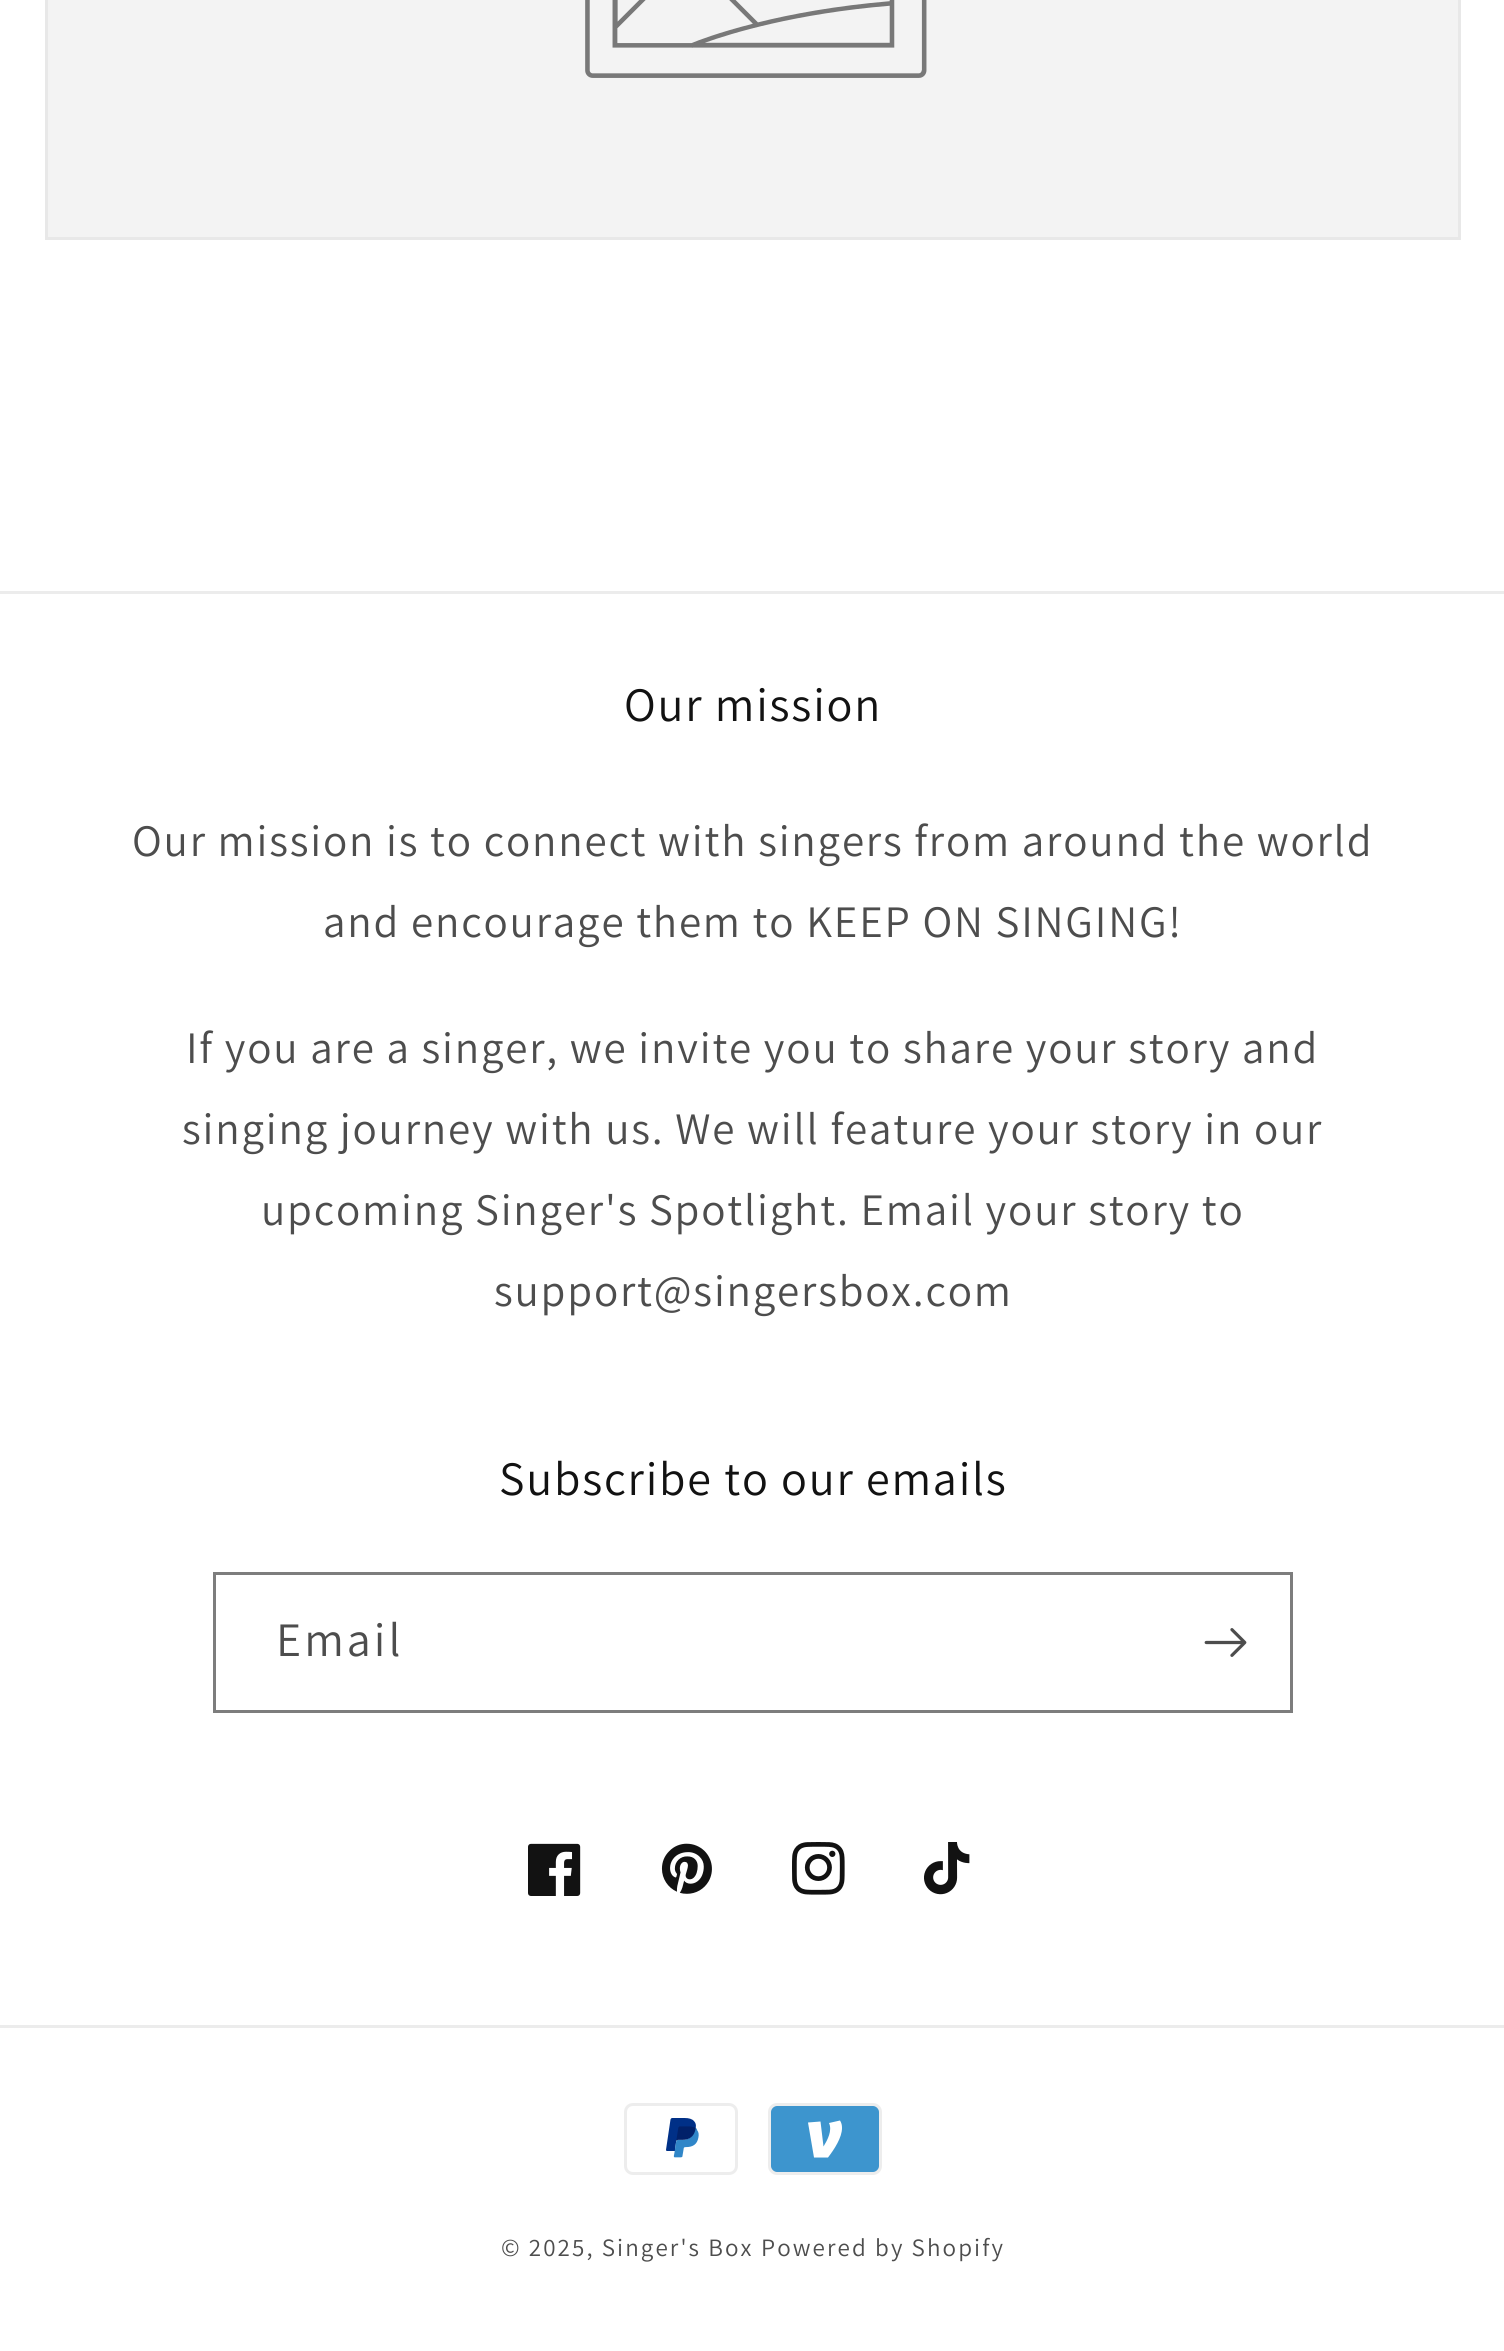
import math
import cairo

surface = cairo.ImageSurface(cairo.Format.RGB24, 1504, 2351)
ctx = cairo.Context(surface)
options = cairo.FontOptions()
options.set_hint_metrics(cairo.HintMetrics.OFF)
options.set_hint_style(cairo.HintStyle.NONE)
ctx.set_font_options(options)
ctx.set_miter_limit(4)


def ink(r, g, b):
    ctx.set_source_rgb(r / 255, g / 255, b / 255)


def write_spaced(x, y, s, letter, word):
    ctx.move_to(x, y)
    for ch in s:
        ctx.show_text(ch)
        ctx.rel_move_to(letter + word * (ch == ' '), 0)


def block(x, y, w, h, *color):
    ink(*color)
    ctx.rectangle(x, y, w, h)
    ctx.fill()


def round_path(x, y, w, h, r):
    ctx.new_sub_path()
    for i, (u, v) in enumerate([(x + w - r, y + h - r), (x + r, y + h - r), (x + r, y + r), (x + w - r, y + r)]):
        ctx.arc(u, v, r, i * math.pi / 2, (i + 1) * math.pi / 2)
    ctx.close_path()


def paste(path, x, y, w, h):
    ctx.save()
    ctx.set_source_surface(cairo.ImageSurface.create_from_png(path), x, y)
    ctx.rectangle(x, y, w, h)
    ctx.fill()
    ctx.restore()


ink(255, 255, 255)
ctx.paint()
ink(243, 243, 243)
ctx.rectangle(46.5, -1.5, 1413, 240)
ctx.fill_preserve()
ink(232, 232, 232)
ctx.set_line_width(3)
ctx.stroke()
paste("pic1.png", 585, 0, 342, 78)
block(0, 591, 1504, 3, 236, 236, 236)
ctx.select_font_face("Assistant")
ctx.set_font_size(48)
ink(18, 18, 18)
write_spaced(624, 721, "Our mission", 1.8, 0)
ctx.set_font_size(45)
ink(77, 77, 77)
write_spaced(132, 856, "Our mission is to connect with singers from around the world", 1.8, 0)
write_spaced(323, 937, "and encourage them to KEEP ON SINGING!", 1.8, 0)
write_spaced(186, 1063, "If you are a singer, we invite you to share your story and", 1.8, 0)
write_spaced(182, 1144, "singing journey with us. We will feature your story in our", 1.8, 0)
write_spaced(261, 1225, "upcoming Singer's Spotlight. Email your story to", 1.8, 0)
write_spaced(494, 1306, "support@singersbox.com", 1.8, 0)
ctx.set_font_size(48)
ink(18, 18, 18)
write_spaced(499, 1495, "Subscribe to our emails", 1.8, 0)
ctx.rectangle(214.5, 1573.5, 1077, 138)
ink(125, 125, 125)
ctx.stroke()
ink(77, 77, 77)
write_spaced(276, 1656, "Email", 3, 0)
paste("pic2.png", 1204, 1628, 43, 29)
paste("pic3.png", 528, 1843, 53, 53)
paste("pic4.png", 661, 1843, 51, 51)
paste("pic5.png", 792, 1842, 53, 53)
paste("pic6.png", 924, 1842, 46, 53)
block(0, 2025, 1504, 3, 236, 236, 236)
paste("pic7.png", 624, 2103, 114, 72)
ink(237, 237, 237)
round_path(768, 2103, 114, 72, 9)
ctx.fill()
ink(61, 149, 206)
ctx.set_fill_rule(cairo.FillRule.EVEN_ODD)
ctx.new_path()
ctx.move_to(873, 2106)
ctx.curve_to(876, 2106, 879, 2109, 879, 2112)
ctx.line_to(879, 2166)
ctx.curve_to(879, 2169, 876, 2172, 873, 2172)
ctx.line_to(777, 2172)
ctx.curve_to(774, 2172, 771, 2169, 771, 2166)
ctx.line_to(771, 2112)
ctx.curve_to(771, 2109, 774, 2106, 777, 2106)
ctx.line_to(873, 2106)
ctx.fill()
ink(255, 255, 255)
ctx.set_fill_rule(cairo.FillRule.WINDING)
ctx.new_path()
ctx.move_to(842, 2128)
ctx.curve_to(842, 2137.5, 834.5, 2149, 828, 2157.5)
ctx.line_to(814, 2157.5)
ctx.line_to(808, 2122.5)
ctx.line_to(820.5, 2121.5)
ctx.line_to(823.5, 2146.5)
ctx.curve_to(827.5, 2140, 832.5, 2130.5, 829, 2123)
ctx.line_to(840, 2120.5)
ctx.curve_to(841.5, 2123, 842, 2125, 842, 2128)
ctx.close_path()
ctx.fill()
ctx.set_font_size(25)
ink(77, 77, 77)
write_spaced(501, 2256, "© 2025, Singer's Box", 2.1, 0)
write_spaced(761, 2256, "Powered by Shopify", 2.1, 0)
surface.write_to_png("screenshot.png")
